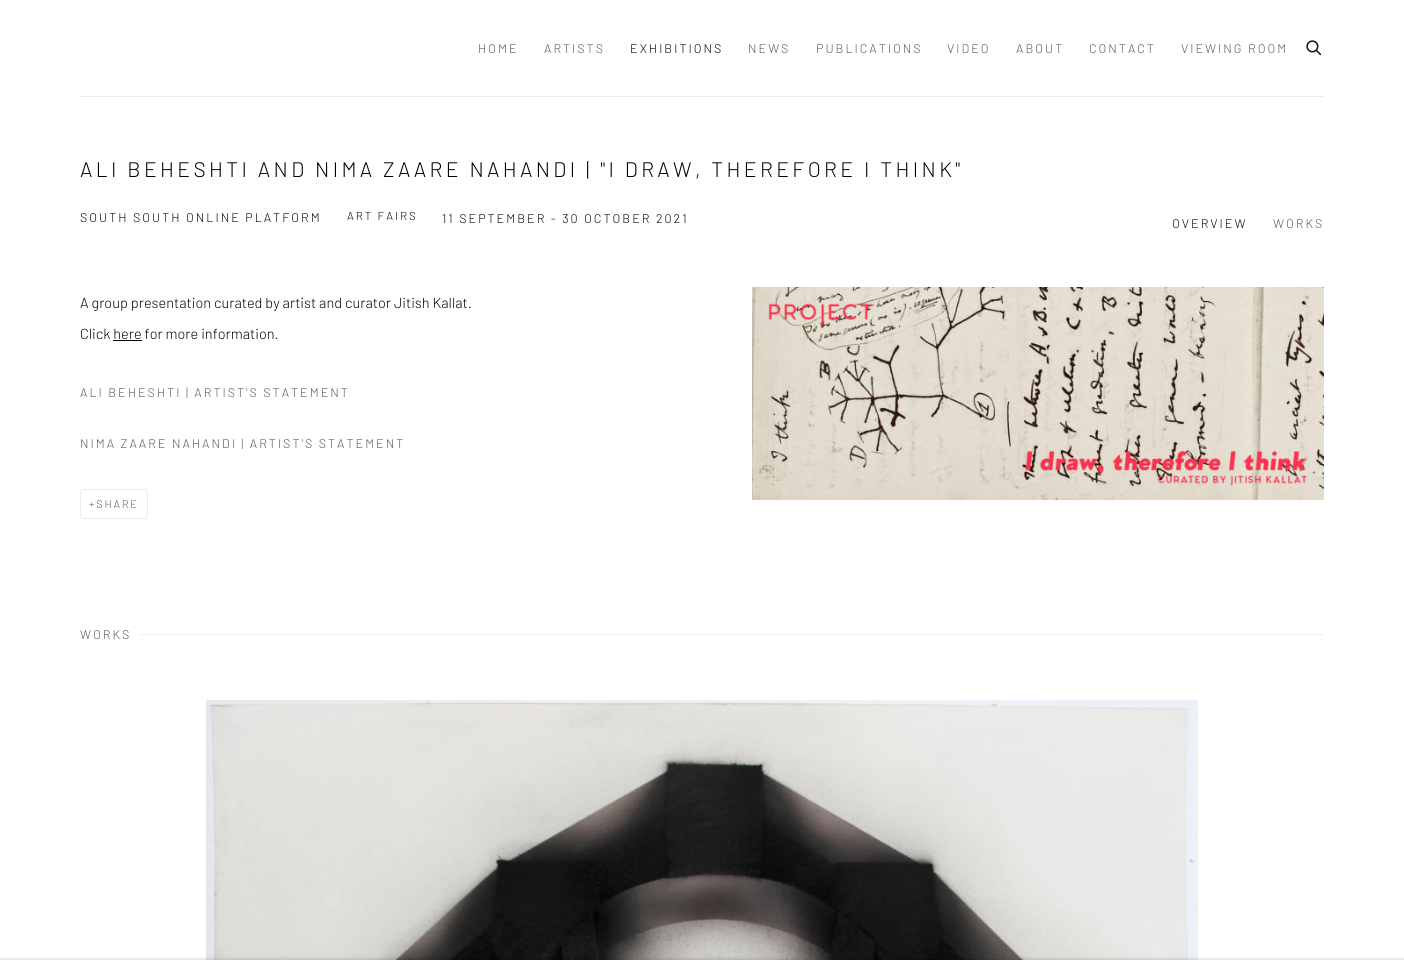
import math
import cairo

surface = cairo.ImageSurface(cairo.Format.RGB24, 1404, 960)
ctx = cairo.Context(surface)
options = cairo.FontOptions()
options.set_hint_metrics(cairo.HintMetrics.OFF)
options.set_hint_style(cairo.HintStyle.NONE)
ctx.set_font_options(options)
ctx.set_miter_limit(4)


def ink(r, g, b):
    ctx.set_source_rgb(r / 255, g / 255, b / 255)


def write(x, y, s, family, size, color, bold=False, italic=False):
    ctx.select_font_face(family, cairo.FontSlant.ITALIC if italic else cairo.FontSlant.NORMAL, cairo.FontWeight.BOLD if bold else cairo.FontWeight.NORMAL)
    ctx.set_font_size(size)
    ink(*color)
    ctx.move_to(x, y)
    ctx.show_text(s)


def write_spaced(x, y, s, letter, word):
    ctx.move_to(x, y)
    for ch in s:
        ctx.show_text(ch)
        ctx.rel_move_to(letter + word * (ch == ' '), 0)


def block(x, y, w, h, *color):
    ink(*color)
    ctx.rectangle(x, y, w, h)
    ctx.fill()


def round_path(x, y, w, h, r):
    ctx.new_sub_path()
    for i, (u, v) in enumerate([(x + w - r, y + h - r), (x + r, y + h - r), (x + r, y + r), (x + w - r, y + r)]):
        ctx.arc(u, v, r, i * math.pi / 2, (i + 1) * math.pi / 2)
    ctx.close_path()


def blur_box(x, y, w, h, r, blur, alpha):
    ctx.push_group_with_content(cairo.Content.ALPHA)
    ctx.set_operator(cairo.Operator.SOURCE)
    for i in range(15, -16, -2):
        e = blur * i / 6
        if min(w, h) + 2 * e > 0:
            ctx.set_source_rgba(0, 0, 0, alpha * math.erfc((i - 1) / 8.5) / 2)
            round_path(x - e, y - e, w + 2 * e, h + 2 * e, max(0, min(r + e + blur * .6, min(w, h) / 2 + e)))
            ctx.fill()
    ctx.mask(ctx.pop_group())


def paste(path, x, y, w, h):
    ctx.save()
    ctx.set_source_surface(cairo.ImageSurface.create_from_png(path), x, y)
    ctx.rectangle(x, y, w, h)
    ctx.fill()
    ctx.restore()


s1 = dict(family="Barlow Light", size=14.5, color=(1, 1, 1))

ink(255, 255, 255)
ctx.paint()
block(80, 96, 1244, 1, 235, 235, 235)
ctx.select_font_face("Barlow Light")
ctx.set_font_size(12.5)
ink(88, 88, 88)
write_spaced(478, 53, "HOME", 2, 0)
write_spaced(544, 53, "ARTISTS", 2, 0)
ink(1, 1, 1)
write_spaced(630, 53, "EXHIBITIONS", 2, 0)
ink(88, 88, 88)
write_spaced(748, 53, "NEWS", 2, 0)
write_spaced(816, 53, "PUBLICATIONS", 2, 0)
write_spaced(947, 53, "VIDEO", 2, 0)
write_spaced(1016, 53, "ABOUT", 2, 0)
write_spaced(1089, 53, "CONTACT", 2, 0)
write_spaced(1181, 53, "VIEWING ROOM", 2, 0)
paste("pic1.png", 1306, 40, 16, 16)
ctx.set_font_size(21)
ink(1, 1, 1)
write_spaced(80, 177, "ALI BEHESHTI AND NIMA ZAARE NAHANDI | \"I DRAW, THEREFORE I THINK\"", 3.35, 0)
ctx.set_font_size(12.5)
write_spaced(80, 222, "SOUTH SOUTH ONLINE PLATFORM", 2, 0)
ctx.set_font_size(11.5)
write_spaced(347, 220, "ART FAIRS", 2, 0)
ctx.set_font_size(12.5)
write_spaced(442, 223, "11 SEPTEMBER - 30 OCTOBER 2021", 2, 0)
write_spaced(1172, 228, "OVERVIEW", 2, 0)
ink(88, 88, 88)
write_spaced(1273, 228, "WORKS", 2, 0)
write(80, 308, "A group presentation curated by artist and curator Jitish Kallat.", **s1)
write(80, 339, "Click here for more information.", **s1)
block(113, 340, 29, 1, 1, 1, 1)
ctx.set_font_size(12.5)
ink(88, 88, 88)
write_spaced(80, 397, "ALI BEHESHTI | ARTIST'S STATEMENT", 2, 0)
write_spaced(80, 448, "NIMA ZAARE NAHANDI | ARTIST'S STATEMENT", 2, 0)
round_path(80.5, 489.5, 67, 29, 1.5)
ink(235, 235, 235)
ctx.set_line_width(1)
ctx.stroke()
ctx.set_font_size(11)
ink(88, 88, 88)
write_spaced(89, 508, "+SHARE", 1.75, 0)
paste("pic2.png", 752, 287, 572, 213)
ctx.set_font_size(12.5)
write_spaced(80, 639, "WORKS", 2, 0)
block(141, 634, 1183, 1, 238, 238, 238)
paste("pic3.png", 206, 700, 992, 260)
ink(0, 0, 0)
blur_box(0, 960, 1404, 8, 0, 2.5, 0.23)
surface.write_to_png("screenshot.png")
